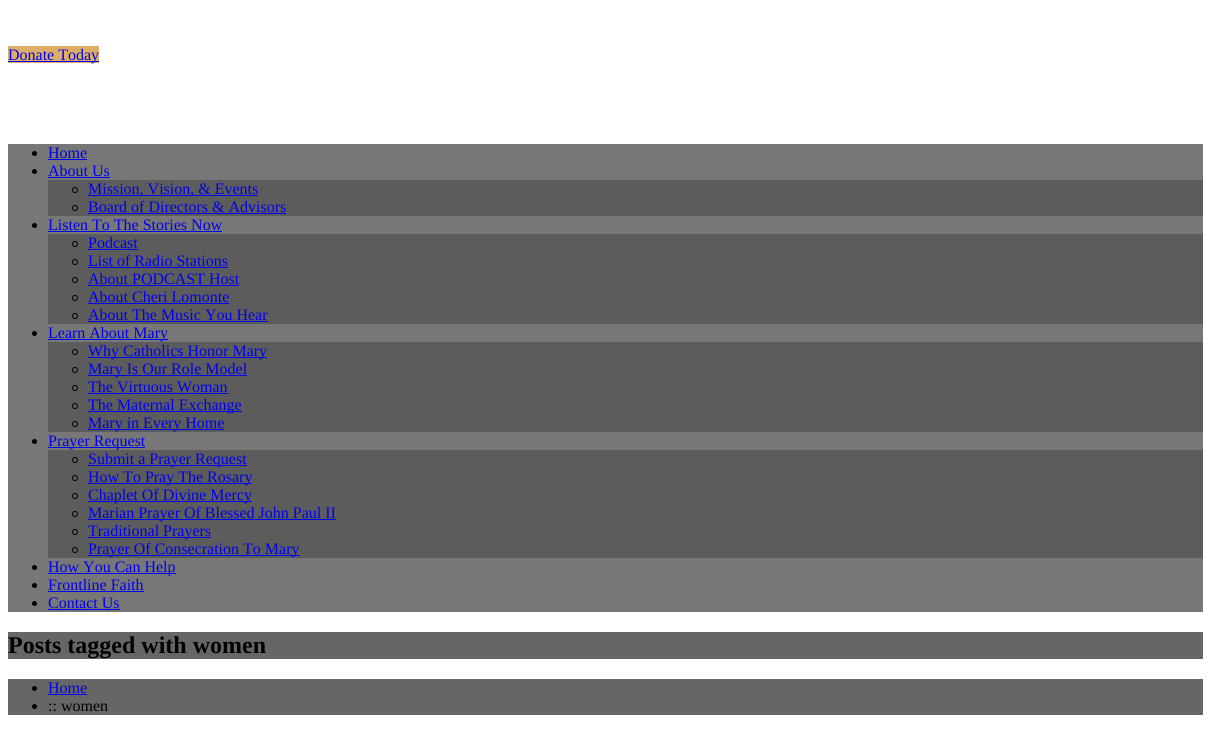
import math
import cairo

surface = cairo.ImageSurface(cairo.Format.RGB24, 1211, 748)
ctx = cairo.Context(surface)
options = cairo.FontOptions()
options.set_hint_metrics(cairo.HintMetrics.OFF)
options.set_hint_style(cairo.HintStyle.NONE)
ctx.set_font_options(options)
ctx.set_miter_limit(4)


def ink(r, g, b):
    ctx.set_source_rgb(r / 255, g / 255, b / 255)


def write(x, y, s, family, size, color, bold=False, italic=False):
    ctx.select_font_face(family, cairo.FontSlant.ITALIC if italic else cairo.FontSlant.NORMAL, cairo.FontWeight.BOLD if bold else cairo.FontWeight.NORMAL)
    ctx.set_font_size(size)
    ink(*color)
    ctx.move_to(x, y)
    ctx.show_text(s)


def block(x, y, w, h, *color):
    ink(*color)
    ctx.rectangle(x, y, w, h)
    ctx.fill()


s1 = dict(family="Liberation Serif", size=16, color=(0, 0, 238))
s2 = dict(family="Liberation Serif", size=24, color=(0, 0, 0), bold=True)
s3 = dict(family="Liberation Serif", size=16, color=(0, 0, 0))

ink(255, 255, 255)
ctx.paint()
block(8, 46, 91, 17, 221, 174, 104)
block(8, 61, 91, 1, 0, 0, 238)
write(8, 60, "Donate Today", **s1)
block(8, 144, 1195, 468, 119, 119, 119)
ink(0, 0, 0)
ctx.new_path()
ctx.arc(34.5, 153.5, 2.5, 0, 2 * math.pi)
ctx.fill()
write(48, 158, "Home", **s1)
block(48, 159, 39, 1, 0, 0, 238)
ink(0, 0, 0)
ctx.new_path()
ctx.arc(34.5, 171.5, 2.5, 0, 2 * math.pi)
ctx.fill()
write(48, 176, "About Us", **s1)
block(48, 177, 62, 1, 0, 0, 238)
block(48, 180, 1155, 36, 92, 92, 92)
ctx.new_path()
ctx.arc(75, 190, 2.5, 0, 2 * math.pi)
ink(0, 0, 0)
ctx.set_line_width(1)
ctx.stroke()
block(88, 195, 170, 1, 0, 0, 238)
write(88, 194, "Mission, Vision, & Events", **s1)
ctx.new_path()
ctx.arc(75, 208, 2.5, 0, 2 * math.pi)
ink(0, 0, 0)
ctx.stroke()
write(88, 212, "Board of Directors & Advisors", **s1)
block(88, 213, 198, 1, 0, 0, 238)
ink(0, 0, 0)
ctx.new_path()
ctx.arc(34.5, 225.5, 2.5, 0, 2 * math.pi)
ctx.fill()
write(48, 230, "Listen To The Stories Now", **s1)
block(48, 231, 174, 1, 0, 0, 238)
block(48, 234, 1155, 90, 92, 92, 92)
ctx.new_path()
ctx.arc(75, 244, 2.5, 0, 2 * math.pi)
ink(0, 0, 0)
ctx.stroke()
write(88, 248, "Podcast", **s1)
block(88, 249, 50, 1, 0, 0, 238)
ctx.new_path()
ctx.arc(75, 262, 2.5, 0, 2 * math.pi)
ink(0, 0, 0)
ctx.stroke()
write(88, 266, "List of Radio Stations", **s1)
block(88, 267, 140, 1, 0, 0, 238)
ctx.new_path()
ctx.arc(75, 280, 2.5, 0, 2 * math.pi)
ink(0, 0, 0)
ctx.stroke()
write(88, 284, "About PODCAST Host", **s1)
block(88, 285, 151, 1, 0, 0, 238)
ctx.new_path()
ctx.arc(75, 298, 2.5, 0, 2 * math.pi)
ink(0, 0, 0)
ctx.stroke()
write(88, 302, "About Cheri Lomonte", **s1)
block(88, 303, 141, 1, 0, 0, 238)
ctx.new_path()
ctx.arc(75, 316, 2.5, 0, 2 * math.pi)
ink(0, 0, 0)
ctx.stroke()
write(88, 320, "About The Music You Hear", **s1)
block(88, 321, 180, 1, 0, 0, 238)
ink(0, 0, 0)
ctx.new_path()
ctx.arc(34.5, 333.5, 2.5, 0, 2 * math.pi)
ctx.fill()
block(48, 339, 120, 1, 0, 0, 238)
write(48, 338, "Learn About Mary", **s1)
block(48, 342, 1155, 90, 92, 92, 92)
ctx.new_path()
ctx.arc(75, 352, 2.5, 0, 2 * math.pi)
ink(0, 0, 0)
ctx.stroke()
block(88, 357, 179, 1, 0, 0, 238)
write(88, 356, "Why Catholics Honor Mary", **s1)
ctx.new_path()
ctx.arc(75, 370, 2.5, 0, 2 * math.pi)
ink(0, 0, 0)
ctx.stroke()
block(88, 375, 159, 1, 0, 0, 238)
write(88, 374, "Mary Is Our Role Model", **s1)
ctx.new_path()
ctx.arc(75, 388, 2.5, 0, 2 * math.pi)
ink(0, 0, 0)
ctx.stroke()
write(88, 392, "The Virtuous Woman", **s1)
block(88, 393, 140, 1, 0, 0, 238)
ctx.new_path()
ctx.arc(75, 406, 2.5, 0, 2 * math.pi)
ink(0, 0, 0)
ctx.stroke()
block(88, 411, 154, 1, 0, 0, 238)
write(88, 410, "The Maternal Exchange", **s1)
ctx.new_path()
ctx.arc(75, 424, 2.5, 0, 2 * math.pi)
ink(0, 0, 0)
ctx.stroke()
block(88, 429, 136, 1, 0, 0, 238)
write(88, 428, "Mary in Every Home", **s1)
ink(0, 0, 0)
ctx.new_path()
ctx.arc(34.5, 441.5, 2.5, 0, 2 * math.pi)
ctx.fill()
block(48, 447, 97, 1, 0, 0, 238)
write(48, 446, "Prayer Request", **s1)
block(48, 450, 1155, 108, 92, 92, 92)
ctx.new_path()
ctx.arc(75, 460, 2.5, 0, 2 * math.pi)
ink(0, 0, 0)
ctx.stroke()
block(88, 465, 159, 1, 0, 0, 238)
write(88, 464, "Submit a Prayer Request", **s1)
ctx.new_path()
ctx.arc(75, 478, 2.5, 0, 2 * math.pi)
ink(0, 0, 0)
ctx.stroke()
block(88, 483, 164, 1, 0, 0, 238)
write(88, 482, "How To Pray The Rosary", **s1)
ctx.new_path()
ctx.arc(75, 496, 2.5, 0, 2 * math.pi)
ink(0, 0, 0)
ctx.stroke()
block(88, 501, 164, 1, 0, 0, 238)
write(88, 500, "Chaplet Of Divine Mercy", **s1)
ctx.new_path()
ctx.arc(75, 514, 2.5, 0, 2 * math.pi)
ink(0, 0, 0)
ctx.stroke()
block(88, 519, 248, 1, 0, 0, 238)
write(88, 518, "Marian Prayer Of Blessed John Paul II", **s1)
ctx.new_path()
ctx.arc(75, 532, 2.5, 0, 2 * math.pi)
ink(0, 0, 0)
ctx.stroke()
block(88, 537, 123, 1, 0, 0, 238)
write(88, 536, "Traditional Prayers", **s1)
ctx.new_path()
ctx.arc(75, 550, 2.5, 0, 2 * math.pi)
ink(0, 0, 0)
ctx.stroke()
block(88, 555, 212, 1, 0, 0, 238)
write(88, 554, "Prayer Of Consecration To Mary", **s1)
ink(0, 0, 0)
ctx.new_path()
ctx.arc(34.5, 567.5, 2.5, 0, 2 * math.pi)
ctx.fill()
block(48, 573, 128, 1, 0, 0, 238)
write(48, 572, "How You Can Help", **s1)
ink(0, 0, 0)
ctx.new_path()
ctx.arc(34.5, 585.5, 2.5, 0, 2 * math.pi)
ctx.fill()
write(48, 590, "Frontline Faith", **s1)
block(48, 591, 96, 1, 0, 0, 238)
ink(0, 0, 0)
ctx.new_path()
ctx.arc(34.5, 603.5, 2.5, 0, 2 * math.pi)
ctx.fill()
write(48, 608, "Contact Us", **s1)
block(48, 609, 72, 1, 0, 0, 238)
block(8, 632, 1195, 27, 102, 102, 102)
write(8, 653, "Posts tagged with women", **s2)
block(8, 679, 1195, 36, 102, 102, 102)
ink(0, 0, 0)
ctx.new_path()
ctx.arc(34.5, 688.5, 2.5, 0, 2 * math.pi)
ctx.fill()
write(48, 693, "Home", **s1)
block(48, 694, 39, 1, 0, 0, 238)
ink(0, 0, 0)
ctx.new_path()
ctx.arc(34.5, 706.5, 2.5, 0, 2 * math.pi)
ctx.fill()
write(48, 711, ":: women", **s3)
surface.write_to_png("screenshot.png")
